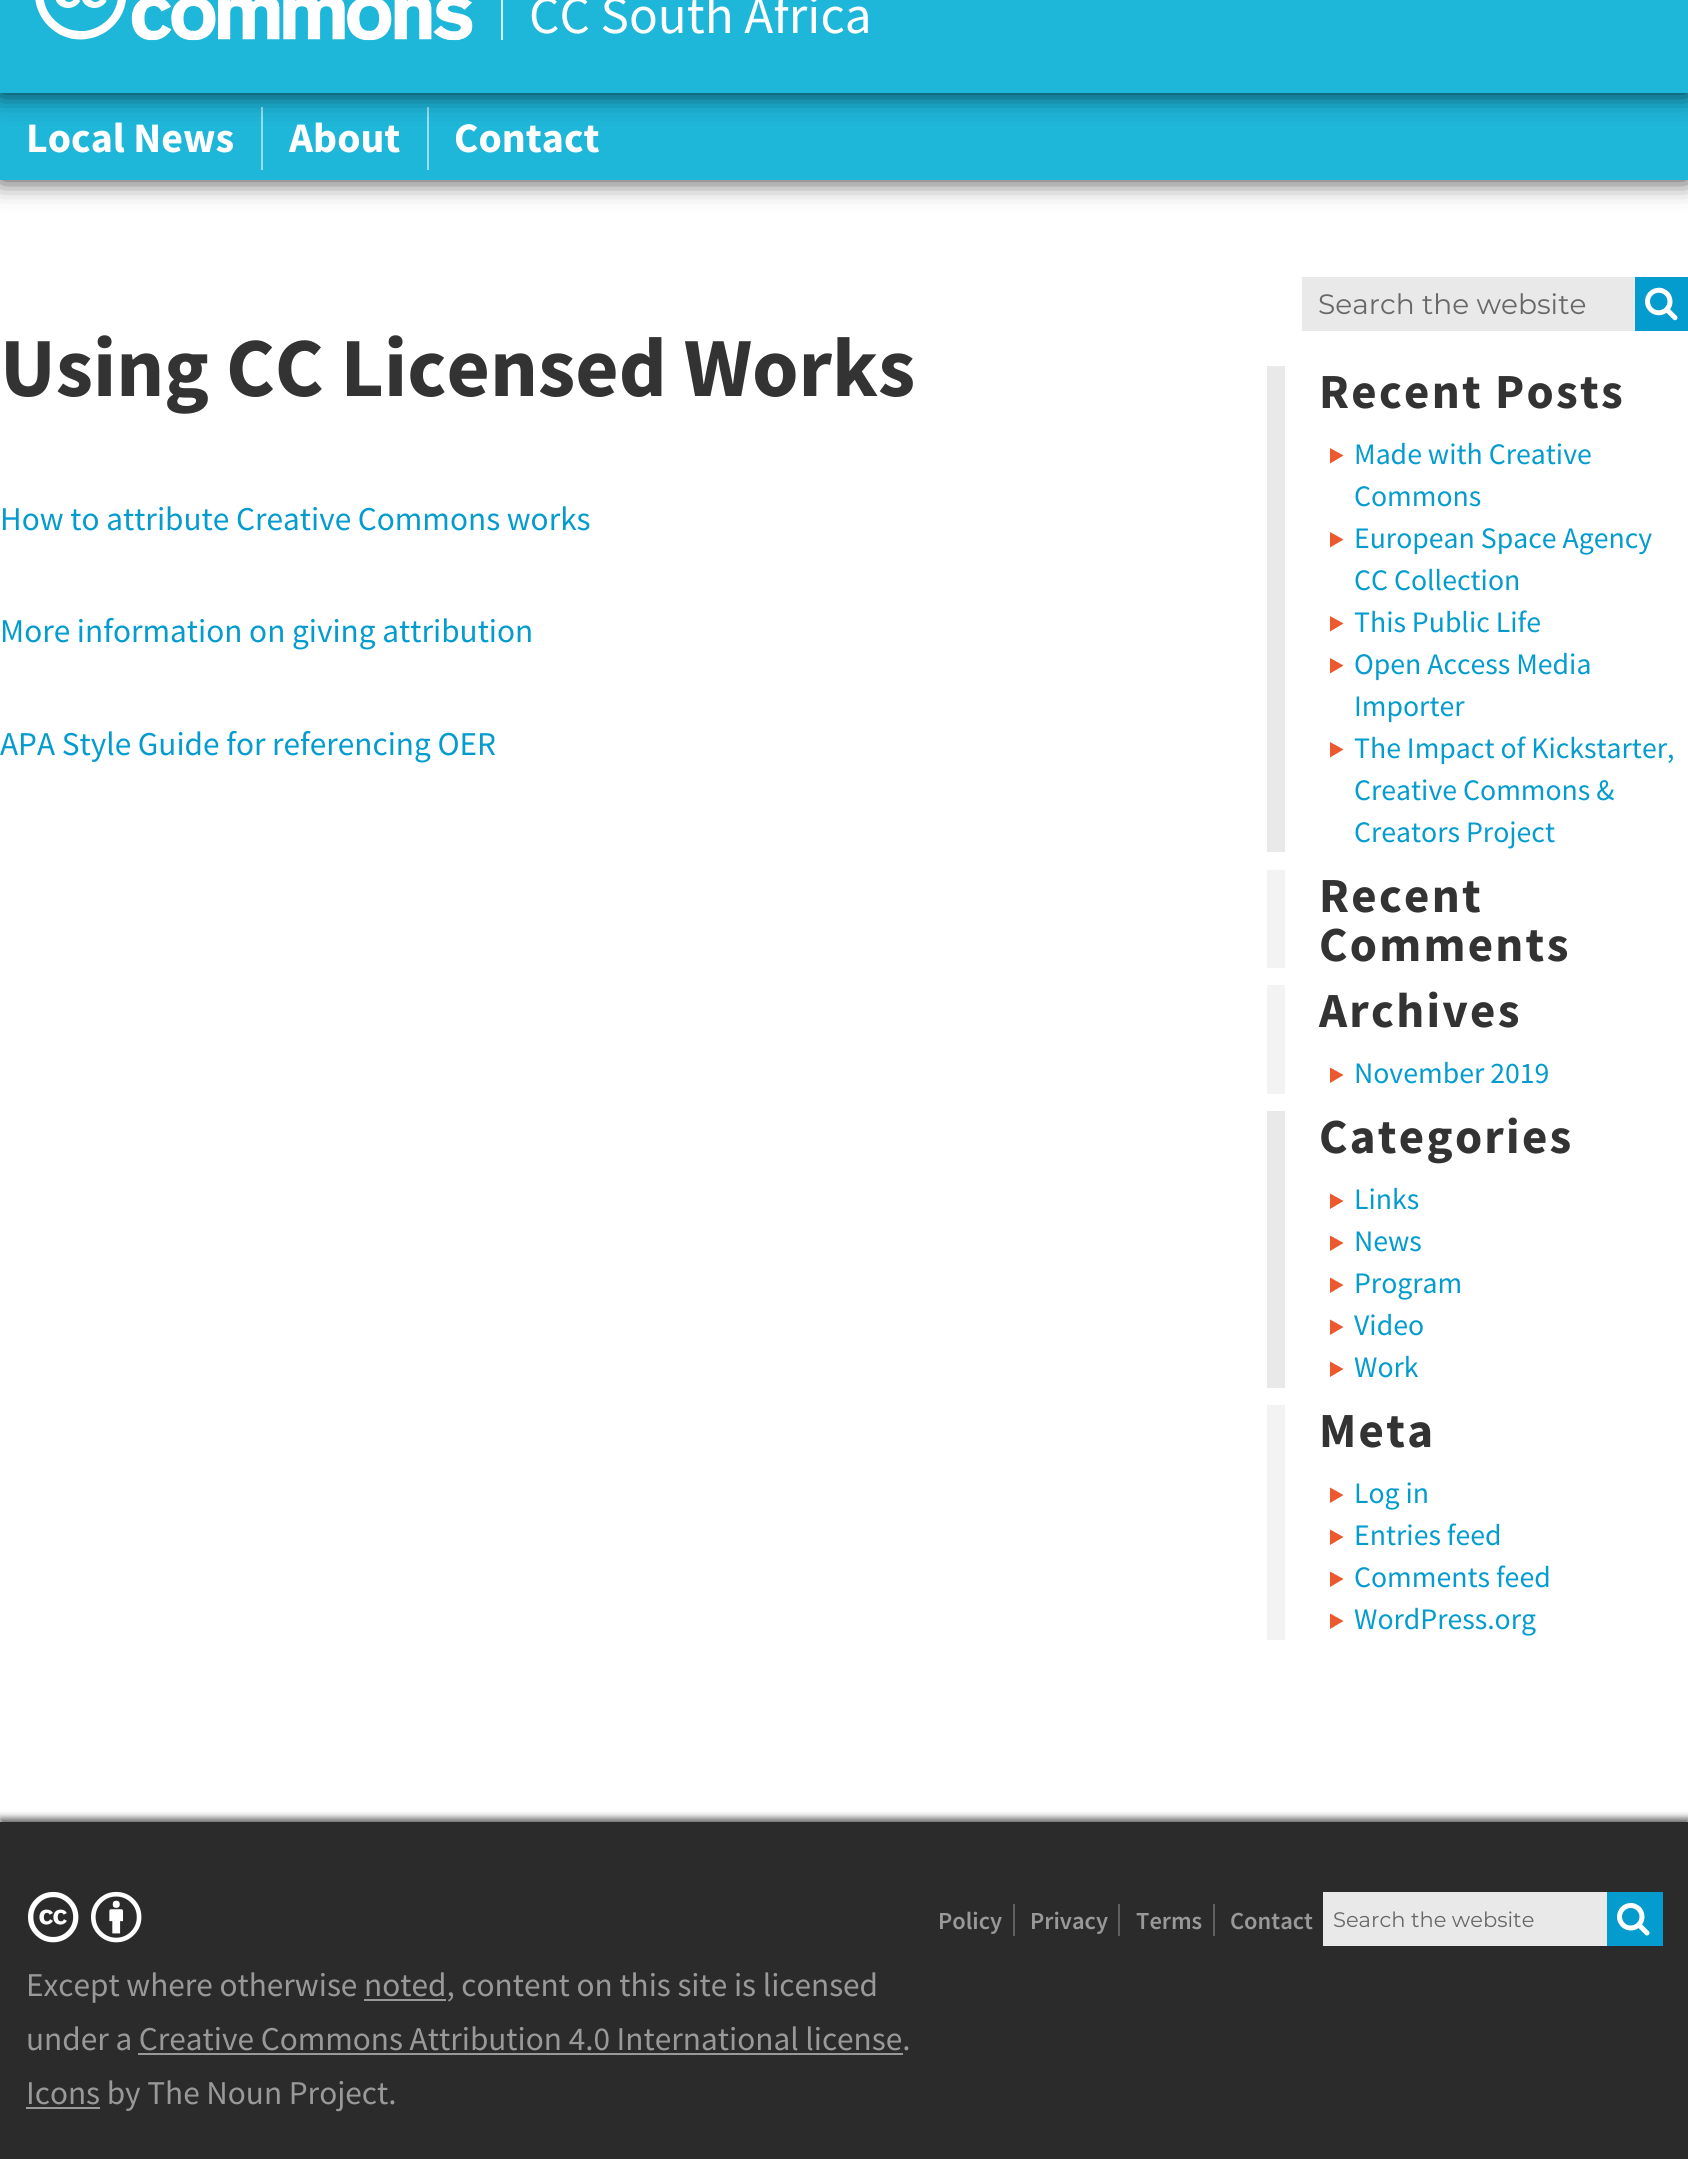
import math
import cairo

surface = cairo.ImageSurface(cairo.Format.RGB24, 1688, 2159)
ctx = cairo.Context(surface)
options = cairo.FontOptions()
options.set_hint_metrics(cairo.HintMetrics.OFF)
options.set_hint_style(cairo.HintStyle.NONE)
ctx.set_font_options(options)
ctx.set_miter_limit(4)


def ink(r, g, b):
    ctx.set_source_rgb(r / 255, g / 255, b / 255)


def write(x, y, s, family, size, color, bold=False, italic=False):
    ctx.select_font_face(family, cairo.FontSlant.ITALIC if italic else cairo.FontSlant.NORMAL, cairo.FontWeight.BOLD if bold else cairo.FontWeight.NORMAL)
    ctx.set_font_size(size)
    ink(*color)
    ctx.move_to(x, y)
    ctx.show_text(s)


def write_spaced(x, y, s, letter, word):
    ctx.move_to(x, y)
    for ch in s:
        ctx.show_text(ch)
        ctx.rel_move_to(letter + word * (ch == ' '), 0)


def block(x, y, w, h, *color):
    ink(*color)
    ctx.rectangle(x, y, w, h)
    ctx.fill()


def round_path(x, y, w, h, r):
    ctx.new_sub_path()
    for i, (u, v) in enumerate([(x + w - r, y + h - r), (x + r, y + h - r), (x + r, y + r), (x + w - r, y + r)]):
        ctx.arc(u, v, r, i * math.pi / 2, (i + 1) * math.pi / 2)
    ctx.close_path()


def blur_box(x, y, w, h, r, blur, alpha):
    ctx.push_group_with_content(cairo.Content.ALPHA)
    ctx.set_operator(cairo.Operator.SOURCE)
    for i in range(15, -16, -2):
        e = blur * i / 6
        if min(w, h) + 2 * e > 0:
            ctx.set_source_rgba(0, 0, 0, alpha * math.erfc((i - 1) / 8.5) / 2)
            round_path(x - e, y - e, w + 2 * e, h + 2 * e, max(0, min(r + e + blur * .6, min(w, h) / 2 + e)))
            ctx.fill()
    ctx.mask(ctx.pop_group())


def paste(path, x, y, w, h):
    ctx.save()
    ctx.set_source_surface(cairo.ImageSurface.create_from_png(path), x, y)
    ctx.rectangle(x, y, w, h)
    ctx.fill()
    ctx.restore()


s1 = dict(family="Source Sans Pro", size=53.25, color=(255, 255, 255))
s2 = dict(family="Source Sans Pro", size=42, color=(255, 255, 255), bold=True)
s3 = dict(family="Source Sans Pro", size=84, color=(51, 51, 51), bold=True)
s4 = dict(family="Source Sans Pro", size=33.25, color=(4, 156, 207))
s5 = dict(family="Montserrat", size=28, color=(104, 104, 104))
s6 = dict(family="Source Sans Pro", size=29.75, color=(4, 156, 207))
s7 = dict(family="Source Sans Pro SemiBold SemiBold", size=24.5, color=(153, 153, 153))
s8 = dict(family="Montserrat", size=21, color=(104, 104, 104))
s9 = dict(family="Source Sans Pro", size=33.25, color=(153, 153, 153))

ink(255, 255, 255)
ctx.paint()
ink(0, 0, 0)
blur_box(0, 93, 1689, 87, 0, 13, 0.8)
block(0, 93, 1688, 87, 30, 182, 217)
block(261, 107, 2, 63, 154, 222, 238)
block(427, 107, 2, 63, 154, 222, 238)
ink(0, 0, 0)
blur_box(0, -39, 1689, 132, 0, 13, 0.8)
block(0, 0, 1688, 93, 30, 182, 217)
block(501, 0, 2, 40, 210, 240, 247)
paste("pic1.png", 35, 0, 438, 41)
write(529, 33, "CC South Africa", **s1)
write(26, 152, "Local News", **s2)
write(289, 152, "About", **s2)
write(454, 152, "Contact", **s2)
write(0, 396, "Using CC Licensed Works", **s3)
write(0, 530, "How to attribute Creative Commons works", **s4)
write(0, 642, "More information on giving attribution", **s4)
write(0, 755, "APA Style Guide for referencing OER", **s4)
block(1302, 277, 333, 54, 233, 233, 233)
write(1318, 314, "Search the website", **s5)
block(1635, 277, 53, 54, 4, 155, 206)
paste("pic2.png", 1645, 287, 33, 34)
block(1267, 366, 18, 486, 233, 233, 233)
ctx.select_font_face("Source Sans Pro", cairo.FontSlant.NORMAL, cairo.FontWeight.BOLD)
ctx.set_font_size(49)
ink(51, 51, 51)
write_spaced(1319, 408, "Recent Posts", 2.25, 0)
ink(236, 89, 47)
ctx.new_path()
ctx.move_to(1330, 448)
ctx.line_to(1343.5, 455.5)
ctx.line_to(1330, 463.5)
ctx.close_path()
ctx.fill()
write(1354, 464, "Made with Creative", **s6)
write(1354, 506, "Commons", **s6)
ink(236, 89, 47)
ctx.new_path()
ctx.move_to(1330, 532)
ctx.line_to(1343.5, 539.5)
ctx.line_to(1330, 547.5)
ctx.close_path()
ctx.fill()
write(1354, 548, "European Space Agency", **s6)
write(1354, 590, "CC Collection", **s6)
ink(236, 89, 47)
ctx.new_path()
ctx.move_to(1330, 616)
ctx.line_to(1343.5, 623.5)
ctx.line_to(1330, 631.5)
ctx.close_path()
ctx.fill()
write(1354, 632, "This Public Life", **s6)
ink(236, 89, 47)
ctx.new_path()
ctx.move_to(1330, 658)
ctx.line_to(1343.5, 665.5)
ctx.line_to(1330, 673.5)
ctx.close_path()
ctx.fill()
write(1354, 674, "Open Access Media", **s6)
write(1354, 716, "Importer", **s6)
ink(236, 89, 47)
ctx.new_path()
ctx.move_to(1330, 742)
ctx.line_to(1343.5, 749.5)
ctx.line_to(1330, 757.5)
ctx.close_path()
ctx.fill()
write(1354, 758, "The Impact of Kickstarter,", **s6)
write(1354, 800, "Creative Commons &", **s6)
write(1354, 842, "Creators Project", **s6)
block(1267, 870, 18, 98, 243, 243, 243)
ctx.select_font_face("Source Sans Pro", cairo.FontSlant.NORMAL, cairo.FontWeight.BOLD)
ctx.set_font_size(49)
ink(51, 51, 51)
write_spaced(1319, 912, "Recent", 2.25, 0)
write_spaced(1319, 961, "Comments", 2.25, 0)
block(1267, 985, 18, 109, 243, 243, 243)
ink(51, 51, 51)
write_spaced(1319, 1027, "Archives", 2.25, 0)
ink(236, 89, 47)
ctx.new_path()
ctx.move_to(1330, 1067.5)
ctx.line_to(1343.5, 1075)
ctx.line_to(1330, 1083)
ctx.close_path()
ctx.fill()
write(1354, 1083, "November 2019", **s6)
block(1267, 1111, 18, 277, 233, 233, 233)
ctx.select_font_face("Source Sans Pro", cairo.FontSlant.NORMAL, cairo.FontWeight.BOLD)
ctx.set_font_size(49)
ink(51, 51, 51)
write_spaced(1319, 1153, "Categories", 2.25, 0)
ink(236, 89, 47)
ctx.new_path()
ctx.move_to(1330, 1193.5)
ctx.line_to(1343.5, 1201)
ctx.line_to(1330, 1209)
ctx.close_path()
ctx.fill()
write(1354, 1209, "Links", **s6)
ink(236, 89, 47)
ctx.new_path()
ctx.move_to(1330, 1235.5)
ctx.line_to(1343.5, 1243)
ctx.line_to(1330, 1251)
ctx.close_path()
ctx.fill()
write(1354, 1251, "News", **s6)
ink(236, 89, 47)
ctx.new_path()
ctx.move_to(1330, 1277.5)
ctx.line_to(1343.5, 1285)
ctx.line_to(1330, 1293)
ctx.close_path()
ctx.fill()
write(1354, 1293, "Program", **s6)
ink(236, 89, 47)
ctx.new_path()
ctx.move_to(1330, 1319.5)
ctx.line_to(1343.5, 1327)
ctx.line_to(1330, 1335)
ctx.close_path()
ctx.fill()
write(1354, 1335, "Video", **s6)
ink(236, 89, 47)
ctx.new_path()
ctx.move_to(1330, 1361.5)
ctx.line_to(1343.5, 1369)
ctx.line_to(1330, 1377)
ctx.close_path()
ctx.fill()
write(1354, 1377, "Work", **s6)
block(1267, 1405, 18, 235, 243, 243, 243)
ctx.select_font_face("Source Sans Pro", cairo.FontSlant.NORMAL, cairo.FontWeight.BOLD)
ctx.set_font_size(49)
ink(51, 51, 51)
write_spaced(1319, 1447, "Meta", 2.25, 0)
ink(236, 89, 47)
ctx.new_path()
ctx.move_to(1330, 1487.5)
ctx.line_to(1343.5, 1495)
ctx.line_to(1330, 1503)
ctx.close_path()
ctx.fill()
write(1354, 1503, "Log in", **s6)
ink(236, 89, 47)
ctx.new_path()
ctx.move_to(1330, 1529.5)
ctx.line_to(1343.5, 1537)
ctx.line_to(1330, 1545)
ctx.close_path()
ctx.fill()
write(1354, 1545, "Entries feed", **s6)
ink(236, 89, 47)
ctx.new_path()
ctx.move_to(1330, 1571.5)
ctx.line_to(1343.5, 1579)
ctx.line_to(1330, 1587)
ctx.close_path()
ctx.fill()
write(1354, 1587, "Comments feed", **s6)
ink(236, 89, 47)
ctx.new_path()
ctx.move_to(1330, 1613.5)
ctx.line_to(1343.5, 1621)
ctx.line_to(1330, 1629)
ctx.close_path()
ctx.fill()
write(1354, 1629, "WordPress.org", **s6)
ink(0, 0, 0)
blur_box(0, 1818, 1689, 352, 0, 3.5, 0.6)
block(0, 1822, 1688, 337, 43, 43, 43)
write(938, 1929, "Policy", **s7)
block(1013, 1904, 2, 32, 96, 96, 96)
write(1030, 1929, "Privacy", **s7)
block(1118, 1904, 2, 32, 96, 96, 96)
write(1136, 1929, "Terms", **s7)
block(1213, 1904, 2, 32, 96, 96, 96)
write(1230, 1929, "Contact", **s7)
block(1323, 1892, 284, 54, 233, 233, 233)
write(1333, 1927, "Search the website", **s8)
block(1607, 1892, 56, 54, 4, 155, 206)
paste("pic3.png", 1617, 1903, 33, 33)
paste("pic4.png", 28, 1891, 51, 52)
paste("pic5.png", 91, 1891, 51, 52)
write(26, 1996, "Except where otherwise noted, content on this site is licensed", **s9)
block(364, 1999, 82, 2, 153, 153, 153)
write(26, 2050, "under a Creative Commons Attribution 4.0 International license.", **s9)
block(138, 2053, 765, 2, 153, 153, 153)
block(26, 2107, 74, 2, 153, 153, 153)
write(26, 2104, "Icons by The Noun Project.", **s9)
surface.write_to_png("screenshot.png")
